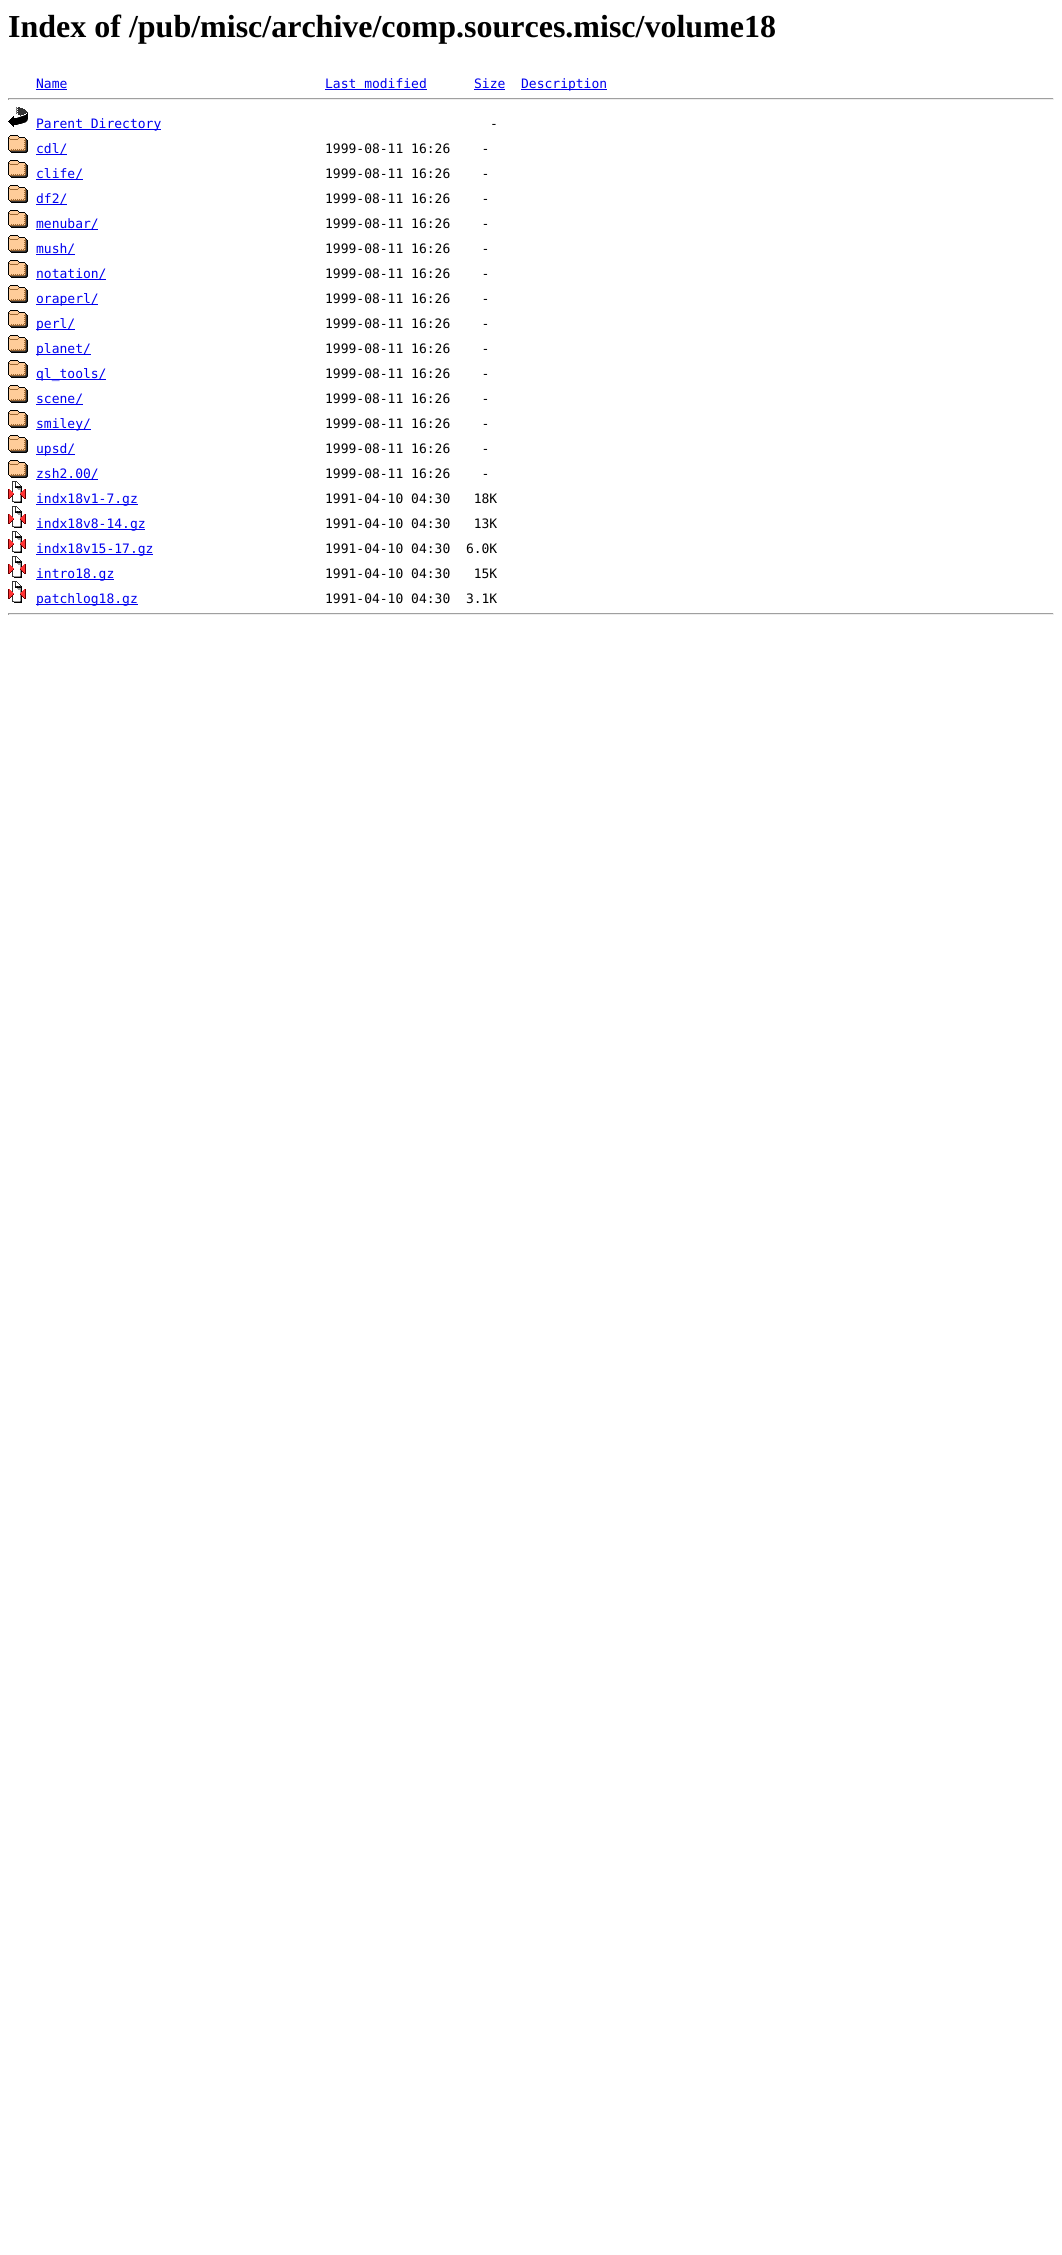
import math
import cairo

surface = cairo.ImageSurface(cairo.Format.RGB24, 1062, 2255)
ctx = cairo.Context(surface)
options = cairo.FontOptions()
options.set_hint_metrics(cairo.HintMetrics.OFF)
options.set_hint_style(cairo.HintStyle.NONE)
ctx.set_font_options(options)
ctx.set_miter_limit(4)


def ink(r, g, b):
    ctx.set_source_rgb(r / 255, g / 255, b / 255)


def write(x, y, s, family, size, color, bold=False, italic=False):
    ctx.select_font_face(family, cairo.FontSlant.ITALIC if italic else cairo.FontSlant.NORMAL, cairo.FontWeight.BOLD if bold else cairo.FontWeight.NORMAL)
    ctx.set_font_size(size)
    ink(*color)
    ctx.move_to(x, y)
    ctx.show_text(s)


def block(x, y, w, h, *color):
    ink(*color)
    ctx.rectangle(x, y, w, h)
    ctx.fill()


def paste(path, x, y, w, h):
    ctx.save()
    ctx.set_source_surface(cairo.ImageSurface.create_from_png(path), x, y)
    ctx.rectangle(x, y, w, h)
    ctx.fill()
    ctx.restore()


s1 = dict(family="Liberation Serif", size=32, color=(0, 0, 0), bold=True)
s2 = dict(family="DejaVu Sans Mono", size=13, color=(0, 0, 238))
s3 = dict(family="DejaVu Sans Mono", size=13, color=(0, 0, 0))

ink(255, 255, 255)
ctx.paint()
write(8, 37, "Index of /pub/misc/archive/comp.sources.misc/volume18", **s1)
write(36, 88, "Name", **s2)
block(36, 89, 31, 1, 0, 0, 238)
write(325, 88, "Last modified", **s2)
block(325, 89, 102, 1, 0, 0, 238)
write(474, 88, "Size", **s2)
block(474, 89, 31, 1, 0, 0, 238)
block(521, 89, 86, 1, 0, 0, 238)
write(521, 88, "Description", **s2)
block(8, 98, 1046, 1, 159, 159, 159)
block(1053, 98, 1, 2, 238, 238, 238)
block(8, 99, 1046, 1, 238, 238, 238)
block(8, 98, 1, 2, 159, 159, 159)
paste("pic1.png", 8, 107, 20, 20)
block(36, 129, 125, 1, 0, 0, 238)
write(36, 128, "Parent Directory", **s2)
write(490, 128, "-", **s3)
paste("pic2.png", 8, 135, 20, 18)
block(36, 154, 31, 1, 0, 0, 238)
write(36, 153, "cdl/", **s2)
write(325, 153, "1999-08-11 16:26    -", **s3)
paste("pic2.png", 8, 160, 20, 18)
block(36, 179, 47, 1, 0, 0, 238)
write(36, 178, "clife/", **s2)
write(325, 178, "1999-08-11 16:26    -", **s3)
paste("pic2.png", 8, 185, 20, 18)
block(36, 204, 31, 1, 0, 0, 238)
write(36, 203, "df2/", **s2)
write(325, 203, "1999-08-11 16:26    -", **s3)
paste("pic2.png", 8, 210, 20, 18)
block(36, 229, 62, 1, 0, 0, 238)
write(36, 228, "menubar/", **s2)
write(325, 228, "1999-08-11 16:26    -", **s3)
paste("pic2.png", 8, 235, 20, 18)
block(36, 254, 39, 1, 0, 0, 238)
write(36, 253, "mush/", **s2)
write(325, 253, "1999-08-11 16:26    -", **s3)
paste("pic2.png", 8, 260, 20, 18)
block(36, 279, 70, 1, 0, 0, 238)
write(36, 278, "notation/", **s2)
write(325, 278, "1999-08-11 16:26    -", **s3)
paste("pic2.png", 8, 285, 20, 18)
block(36, 304, 62, 1, 0, 0, 238)
write(36, 303, "oraperl/", **s2)
write(325, 303, "1999-08-11 16:26    -", **s3)
paste("pic2.png", 8, 310, 20, 18)
block(36, 329, 39, 1, 0, 0, 238)
write(36, 328, "perl/", **s2)
write(325, 328, "1999-08-11 16:26    -", **s3)
paste("pic2.png", 8, 335, 20, 18)
block(36, 354, 55, 1, 0, 0, 238)
write(36, 353, "planet/", **s2)
write(325, 353, "1999-08-11 16:26    -", **s3)
paste("pic2.png", 8, 360, 20, 18)
block(36, 379, 70, 1, 0, 0, 238)
write(36, 378, "ql_tools/", **s2)
write(325, 378, "1999-08-11 16:26    -", **s3)
paste("pic2.png", 8, 385, 20, 18)
block(36, 404, 47, 1, 0, 0, 238)
write(36, 403, "scene/", **s2)
write(325, 403, "1999-08-11 16:26    -", **s3)
paste("pic2.png", 8, 410, 20, 18)
block(36, 429, 55, 1, 0, 0, 238)
write(36, 428, "smiley/", **s2)
write(325, 428, "1999-08-11 16:26    -", **s3)
paste("pic2.png", 8, 435, 20, 18)
block(36, 454, 39, 1, 0, 0, 238)
write(36, 453, "upsd/", **s2)
write(325, 453, "1999-08-11 16:26    -", **s3)
paste("pic2.png", 8, 460, 20, 18)
block(36, 479, 62, 1, 0, 0, 238)
write(36, 478, "zsh2.00/", **s2)
write(325, 478, "1999-08-11 16:26    -", **s3)
paste("pic3.png", 8, 481, 18, 22)
block(36, 504, 102, 1, 0, 0, 238)
write(36, 503, "indx18v1-7.gz", **s2)
write(325, 503, "1991-04-10 04:30   18K", **s3)
paste("pic3.png", 8, 506, 18, 22)
block(36, 529, 109, 1, 0, 0, 238)
write(36, 528, "indx18v8-14.gz", **s2)
write(325, 528, "1991-04-10 04:30   13K", **s3)
paste("pic3.png", 8, 531, 18, 22)
block(36, 554, 117, 1, 0, 0, 238)
write(36, 553, "indx18v15-17.gz", **s2)
write(325, 553, "1991-04-10 04:30  6.0K", **s3)
paste("pic3.png", 8, 556, 18, 22)
block(36, 579, 78, 1, 0, 0, 238)
write(36, 578, "intro18.gz", **s2)
write(325, 578, "1991-04-10 04:30   15K", **s3)
paste("pic3.png", 8, 581, 18, 22)
block(36, 604, 102, 1, 0, 0, 238)
write(36, 603, "patchlog18.gz", **s2)
write(325, 603, "1991-04-10 04:30  3.1K", **s3)
block(8, 613, 1046, 1, 159, 159, 159)
block(1053, 613, 1, 2, 238, 238, 238)
block(8, 614, 1046, 1, 238, 238, 238)
block(8, 613, 1, 2, 159, 159, 159)
surface.write_to_png("screenshot.png")
